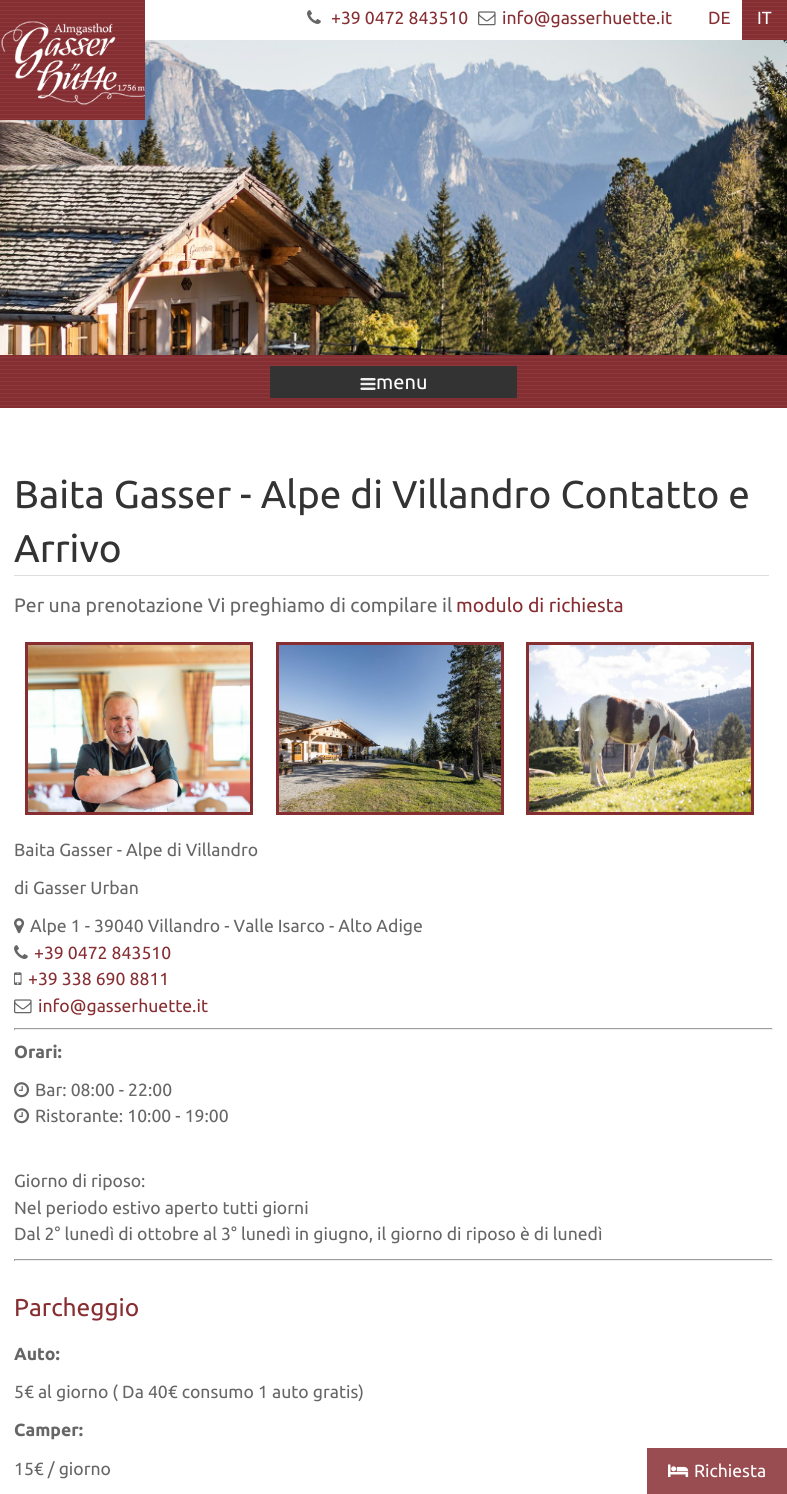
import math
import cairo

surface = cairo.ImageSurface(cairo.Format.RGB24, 787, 1494)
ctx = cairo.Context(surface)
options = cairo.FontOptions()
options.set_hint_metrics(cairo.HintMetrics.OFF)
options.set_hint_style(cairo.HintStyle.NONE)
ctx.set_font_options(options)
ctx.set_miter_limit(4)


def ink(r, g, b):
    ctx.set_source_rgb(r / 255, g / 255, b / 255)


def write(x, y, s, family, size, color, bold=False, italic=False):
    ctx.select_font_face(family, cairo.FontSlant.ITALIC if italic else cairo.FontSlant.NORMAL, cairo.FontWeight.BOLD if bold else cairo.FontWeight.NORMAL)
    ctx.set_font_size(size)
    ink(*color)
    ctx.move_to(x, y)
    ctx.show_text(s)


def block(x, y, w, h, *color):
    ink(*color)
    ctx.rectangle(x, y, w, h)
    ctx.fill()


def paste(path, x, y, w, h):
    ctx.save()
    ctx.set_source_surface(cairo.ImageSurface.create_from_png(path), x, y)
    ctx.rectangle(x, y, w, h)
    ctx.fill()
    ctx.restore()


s1 = dict(family="Ubuntu", size=17.6, color=(135, 46, 50))
s2 = dict(family="Ubuntu", size=17.6, color=(255, 255, 255))
s3 = dict(family="Ubuntu", size=20, color=(255, 255, 255))
s4 = dict(family="Ubuntu", size=38.75, color=(51, 51, 51))
s5 = dict(family="Ubuntu", size=19.4, color=(102, 102, 102))
s6 = dict(family="Ubuntu", size=19.4, color=(135, 46, 50))
s7 = dict(family="Ubuntu", size=17.6, color=(102, 102, 102))
s8 = dict(family="Ubuntu", size=17.6, color=(102, 102, 102), bold=True)
s9 = dict(family="Ubuntu", size=24.5, color=(135, 46, 50))

ink(255, 255, 255)
ctx.paint()
paste("pic6.png", 0, 40, 787, 315)
block(0, 0, 145, 120, 135, 46, 50)
paste("pic1.png", 0, 0, 145, 119)
paste("pic2.png", 1, 21, 144, 84)
paste("pic3.png", 307, 10, 14, 14)
write(331, 24, "+39 0472 843510", **s1)
paste("pic4.png", 478, 11, 18, 15)
write(502, 24, "info@gasserhuette.it", **s1)
write(708, 24, "DE", **s1)
block(742, 0, 45, 40, 135, 46, 50)
paste("pic5.png", 742, 0, 45, 39)
write(757, 24, "IT", **s2)
block(0, 355, 787, 53, 135, 46, 50)
paste("pic7.png", 0, 355, 787, 53)
block(270, 366, 247, 32, 51, 51, 51)
paste("pic8.png", 360, 378, 16, 12)
write(376, 389, "menu", **s3)
block(14, 575, 755, 1, 222, 222, 222)
write(14, 508, "Baita Gasser - Alpe di Villandro Contatto e", **s4)
write(14, 562, "Arrivo", **s4)
write(14, 612, "Per una prenotazione Vi preghiamo di compilare il", **s5)
write(456, 612, "modulo di richiesta", **s6)
ctx.rectangle(26.5, 643.5, 225, 170)
ctx.set_line_width(3)
ctx.stroke()
ctx.rectangle(277.5, 643.5, 225, 170)
ctx.stroke()
ctx.rectangle(527.5, 643.5, 225, 170)
ctx.stroke()
paste("pic9.png", 28, 645, 222, 167)
paste("pic10.png", 279, 645, 222, 167)
paste("pic11.png", 529, 645, 222, 167)
write(14, 856, "Baita Gasser - Alpe di Villandro", **s7)
write(14, 894, "di Gasser Urban", **s7)
paste("pic12.png", 14, 918, 11, 16)
write(30, 932, "Alpe 1 - 39040 Villandro - Valle Isarco - Alto Adige", **s7)
paste("pic3.png", 14, 945, 14, 14)
write(34, 959, "+39 0472 843510", **s1)
paste("pic13.png", 14, 972, 8, 13)
write(28, 985, "+39 338 690 8811", **s1)
paste("pic4.png", 14, 999, 18, 15)
write(38, 1012, "info@gasserhuette.it", **s1)
block(14, 1028, 759, 1, 159, 159, 159)
block(772, 1028, 1, 2, 238, 238, 238)
block(14, 1029, 759, 1, 238, 238, 238)
block(14, 1028, 1, 2, 159, 159, 159)
write(14, 1058, "Orari:", **s8)
paste("pic14.png", 14, 1082, 16, 16)
write(35, 1096, "Bar: 08:00 - 22:00", **s7)
paste("pic14.png", 14, 1108, 16, 16)
write(35, 1122, "Ristorante: 10:00 - 19:00", **s7)
write(14, 1187, "Giorno di riposo:", **s7)
write(14, 1214, "Nel periodo estivo aperto tutti giorni", **s7)
write(14, 1240, "Dal 2° lunedì di ottobre al 3° lunedì in giugno, il giorno di riposo è di lunedì", **s7)
block(14, 1259, 759, 1, 159, 159, 159)
block(772, 1259, 1, 2, 238, 238, 238)
block(14, 1260, 759, 1, 238, 238, 238)
block(14, 1259, 1, 2, 159, 159, 159)
write(14, 1316, "Parcheggio", **s9)
write(14, 1360, "Auto:", **s8)
write(14, 1398, "5€ al giorno ( Da 40€ consumo 1 auto gratis)", **s7)
write(14, 1436, "Camper:", **s8)
write(14, 1475, "15€ / giorno", **s7)
block(647, 1448, 140, 46, 153, 77, 81)
paste("pic15.png", 668, 1464, 21, 13)
write(694, 1477, "Richiesta", **s2)
surface.write_to_png("screenshot.png")
